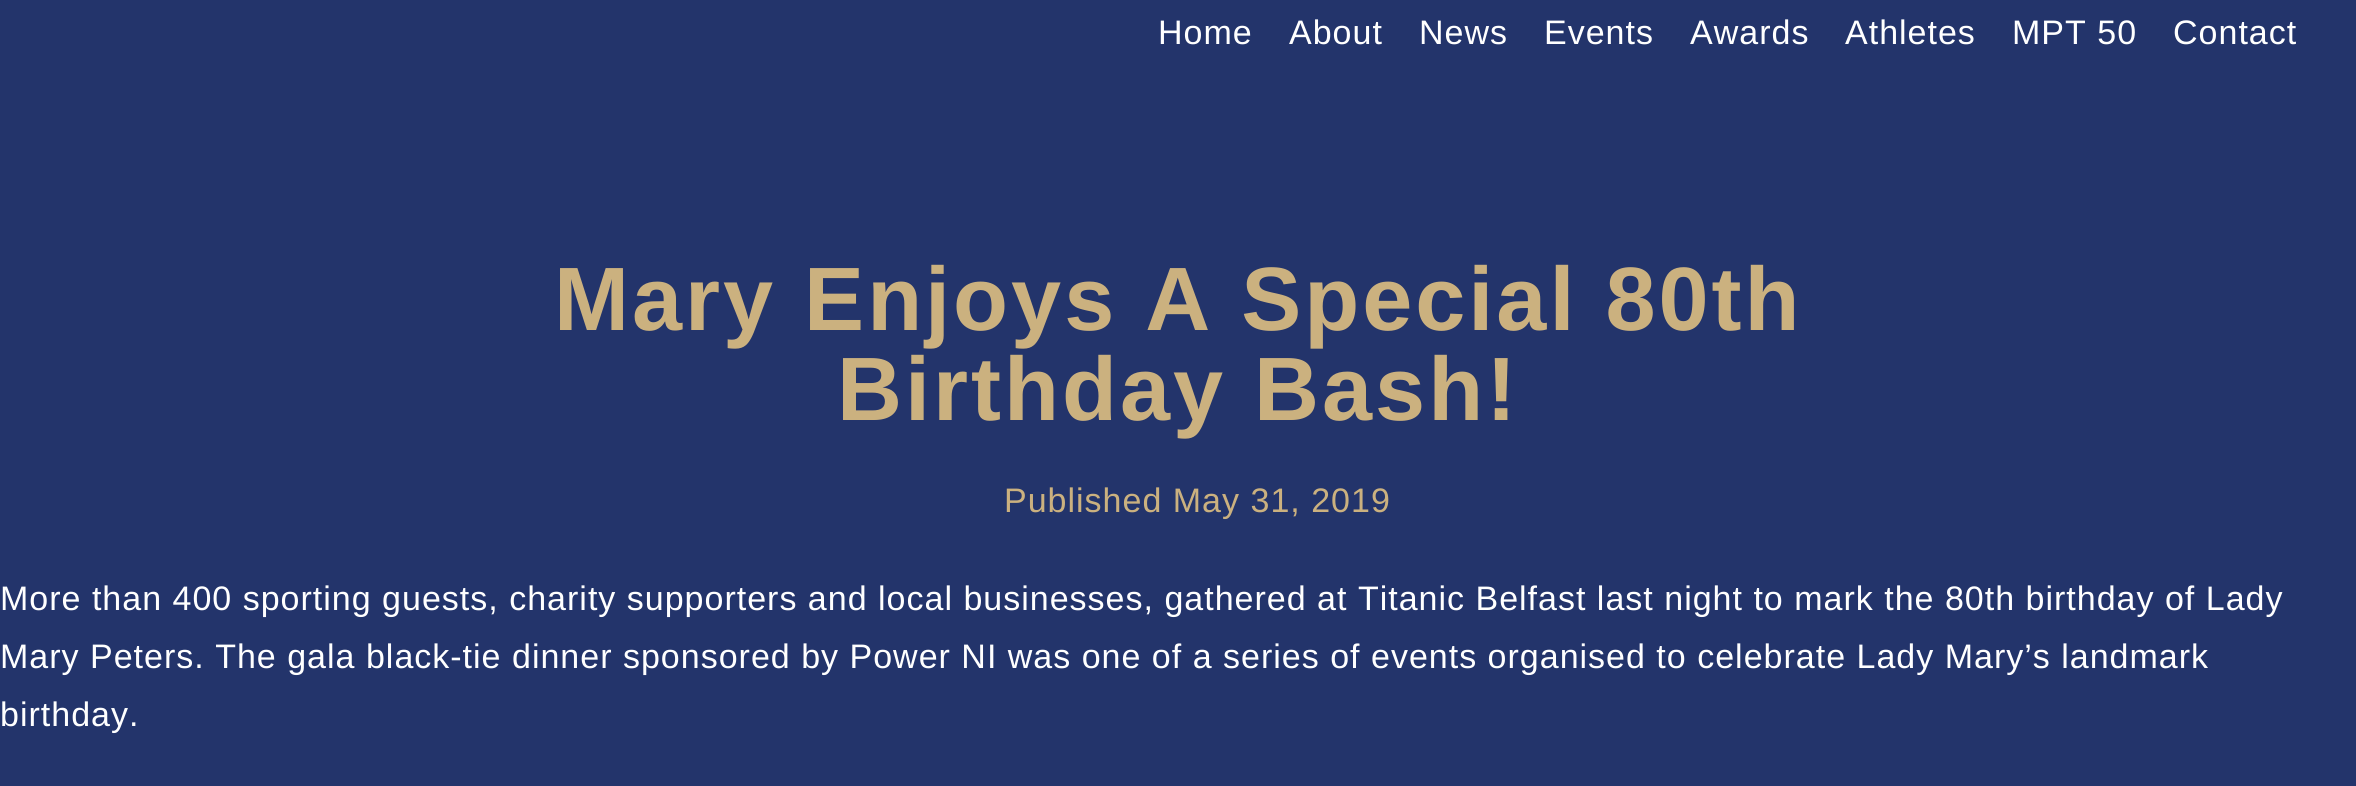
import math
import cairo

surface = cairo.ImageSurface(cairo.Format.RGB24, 2356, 786)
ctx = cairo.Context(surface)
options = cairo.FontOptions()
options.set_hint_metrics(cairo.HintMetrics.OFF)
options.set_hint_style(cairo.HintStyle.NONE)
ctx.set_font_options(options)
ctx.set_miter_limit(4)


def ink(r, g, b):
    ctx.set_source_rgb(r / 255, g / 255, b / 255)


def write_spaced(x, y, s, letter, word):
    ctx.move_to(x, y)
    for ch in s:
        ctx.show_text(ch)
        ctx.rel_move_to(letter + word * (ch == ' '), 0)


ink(35, 52, 107)
ctx.paint()
ctx.select_font_face("Liberation Sans")
ctx.set_font_size(34)
ink(255, 255, 255)
write_spaced(1158, 44, "Home", 1, 0)
write_spaced(1289, 44, "About", 1, 0)
write_spaced(1419, 44, "News", 1, 0)
write_spaced(1544, 44, "Events", 1, 0)
write_spaced(1690, 44, "Awards", 1, 0)
write_spaced(1845, 44, "Athletes", 1, 0)
write_spaced(2012, 44, "MPT 50", 1, 0)
write_spaced(2173, 44, "Contact", 1, 0)
ctx.select_font_face("Liberation Sans", cairo.FontSlant.NORMAL, cairo.FontWeight.BOLD)
ctx.set_font_size(90)
ink(203, 177, 127)
write_spaced(554, 330, "Mary Enjoys A Special 80th", 3, 0)
write_spaced(837, 420, "Birthday Bash!", 3, 0)
ctx.select_font_face("Liberation Sans")
ctx.set_font_size(34)
write_spaced(1004, 512, "Published May 31, 2019", 1, 0)
ink(255, 255, 255)
write_spaced(0, 610, "More than 400 sporting guests, charity supporters and local businesses, gathered at Titanic Belfast last night to mark the 80th birthday of Lady", 1, 0)
write_spaced(0, 668, "Mary Peters. The gala black-tie dinner sponsored by Power NI was one of a series of events organised to celebrate Lady Mary’s landmark", 1, 0)
write_spaced(0, 726, "birthday.", 1, 0)
surface.write_to_png("screenshot.png")
